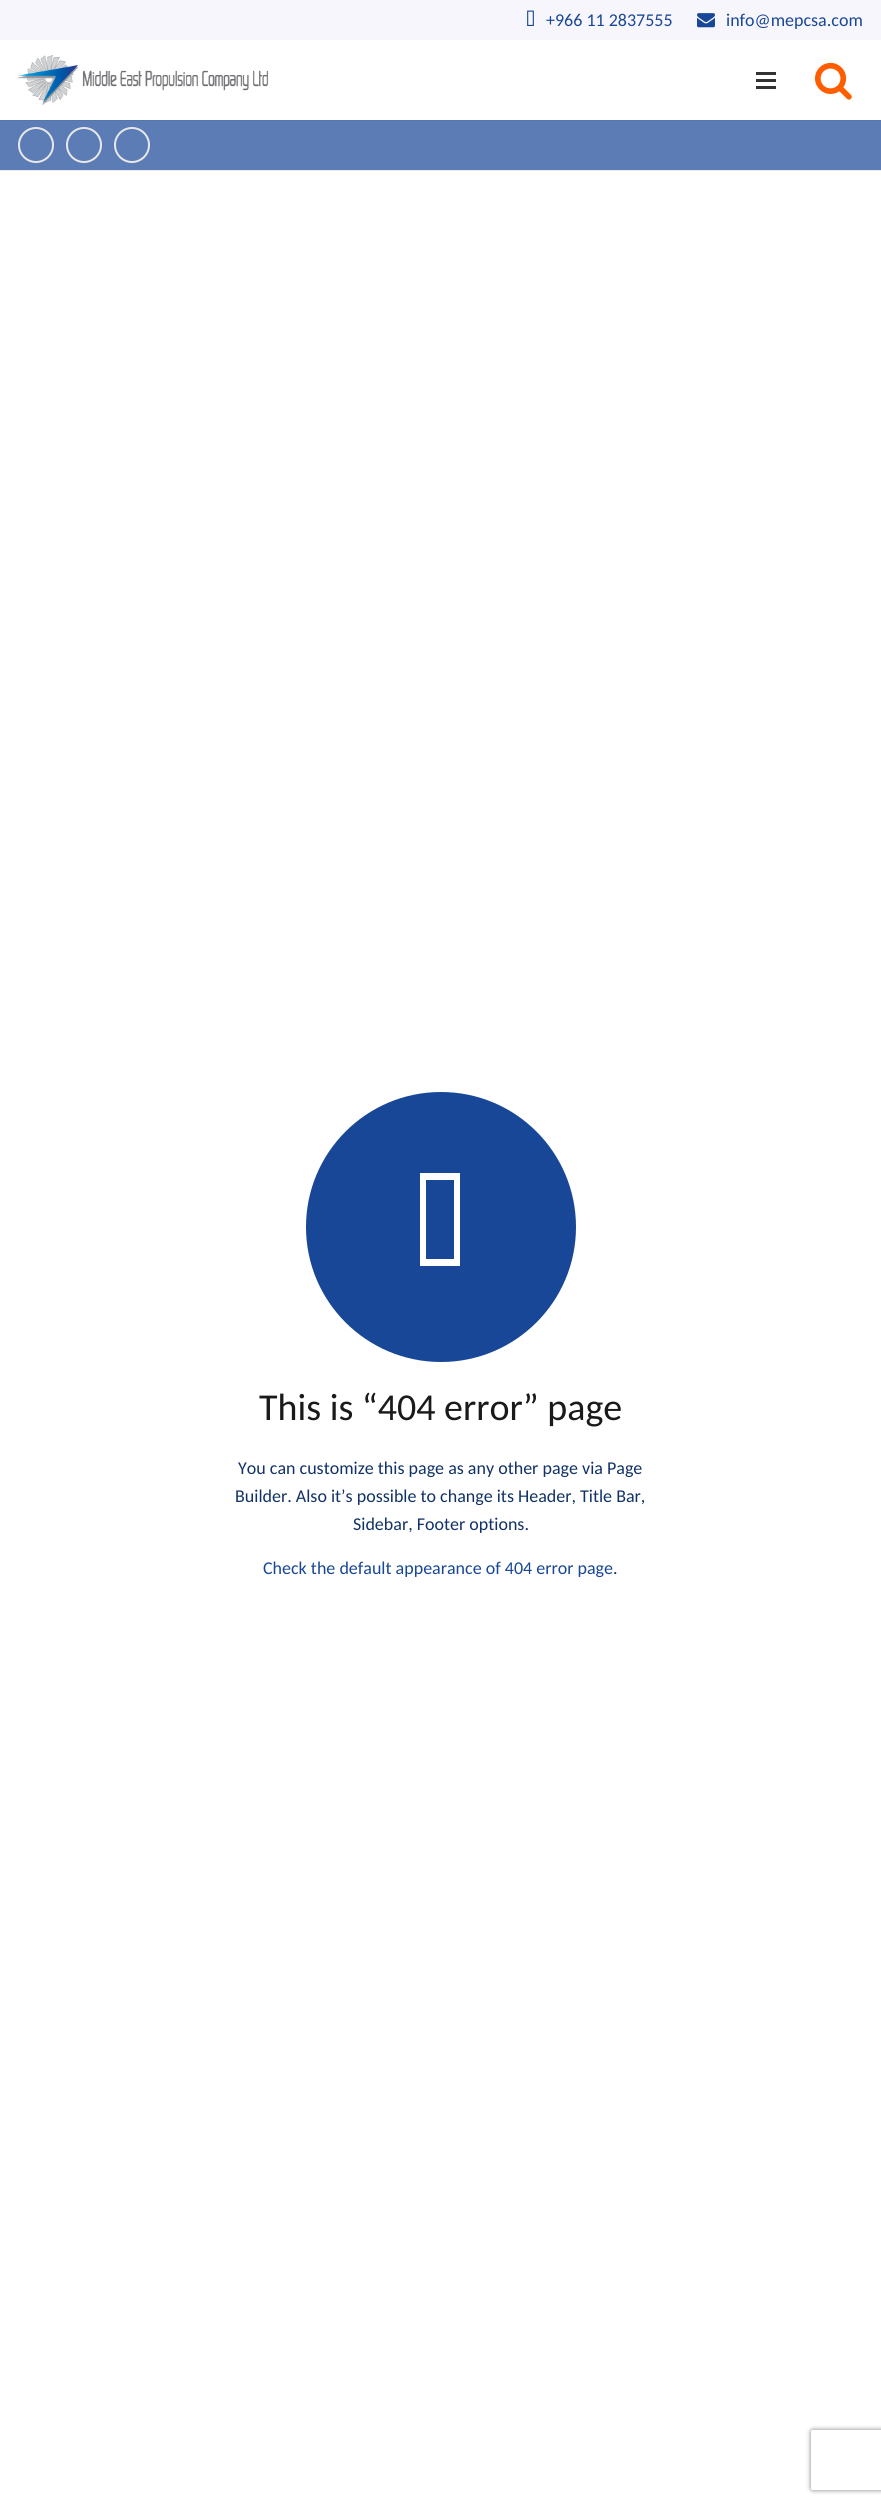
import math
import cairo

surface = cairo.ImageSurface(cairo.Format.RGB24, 881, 2504)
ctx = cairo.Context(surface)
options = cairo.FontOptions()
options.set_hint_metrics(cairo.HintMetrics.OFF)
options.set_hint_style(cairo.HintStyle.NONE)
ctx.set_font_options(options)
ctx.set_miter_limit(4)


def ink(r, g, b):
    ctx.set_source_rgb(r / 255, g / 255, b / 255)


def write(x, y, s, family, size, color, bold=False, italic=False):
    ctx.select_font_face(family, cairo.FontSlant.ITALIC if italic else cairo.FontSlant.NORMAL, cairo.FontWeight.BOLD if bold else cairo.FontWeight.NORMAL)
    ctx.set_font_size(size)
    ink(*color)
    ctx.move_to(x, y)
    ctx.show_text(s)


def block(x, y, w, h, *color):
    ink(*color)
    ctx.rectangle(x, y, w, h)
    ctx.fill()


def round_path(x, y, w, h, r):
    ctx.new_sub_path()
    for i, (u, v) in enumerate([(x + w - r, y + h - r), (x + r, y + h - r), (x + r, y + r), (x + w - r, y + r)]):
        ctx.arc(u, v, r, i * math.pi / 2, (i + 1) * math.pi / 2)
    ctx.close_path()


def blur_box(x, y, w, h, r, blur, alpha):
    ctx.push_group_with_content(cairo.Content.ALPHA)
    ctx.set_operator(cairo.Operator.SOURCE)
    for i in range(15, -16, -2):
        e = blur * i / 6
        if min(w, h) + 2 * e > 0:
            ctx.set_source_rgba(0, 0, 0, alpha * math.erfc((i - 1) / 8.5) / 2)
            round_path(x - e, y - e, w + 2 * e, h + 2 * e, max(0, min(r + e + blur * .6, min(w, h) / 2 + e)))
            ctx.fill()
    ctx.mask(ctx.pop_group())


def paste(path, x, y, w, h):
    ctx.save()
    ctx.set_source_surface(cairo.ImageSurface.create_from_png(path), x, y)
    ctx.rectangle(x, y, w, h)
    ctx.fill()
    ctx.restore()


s1 = dict(family="Carlito", size=18, color=(24, 71, 151))
s2 = dict(family="Carlito", size=38, color=(26, 26, 26))
s3 = dict(family="Carlito", size=18, color=(17, 50, 103))

ink(255, 255, 255)
ctx.paint()
block(0, 121, 881, 49, 91, 124, 181)
block(0, 0, 881, 40, 248, 246, 253)
paste("pic1.png", 527, 10, 7, 16)
write(546, 26, "+966 11 2837555", **s1)
paste("pic2.png", 697, 13, 18, 15)
write(726, 26, "info@mepcsa.com", **s1)
block(0, 120, 881, 1, 85, 119, 175)
paste("pic3.png", 18, 55, 251, 50)
block(756, 79, 20, 3, 51, 51, 51)
block(756, 72, 20, 3, 51, 51, 51)
block(756, 86, 20, 3, 51, 51, 51)
paste("pic4.png", 815, 62, 37, 38)
block(0, 170, 881, 1, 235, 235, 235)
ctx.arc(36, 145, 17, 0, 2 * math.pi)
ink(232, 232, 232)
ctx.stroke()
ctx.arc(84, 145, 17, 0, 2 * math.pi)
ctx.stroke()
ctx.arc(132, 145, 17, 0, 2 * math.pi)
ctx.stroke()
ink(24, 71, 151)
ctx.arc(441, 1227, 135, 0, 2 * math.pi)
ctx.fill()
ink(255, 255, 255)
ctx.new_path()
ctx.move_to(426, 1259)
ctx.line_to(426, 1180)
ctx.line_to(454, 1180)
ctx.line_to(454, 1259)
ctx.close_path()
ctx.move_to(420, 1266)
ctx.line_to(460, 1266)
ctx.line_to(460, 1173)
ctx.line_to(420, 1173)
ctx.close_path()
ctx.fill()
write(259, 1420, "This is “404 error” page", **s2)
write(238, 1474, "You can customize this page as any other page via Page", **s3)
write(235, 1502, "Builder. Also it’s possible to change its Header, Title Bar,", **s3)
write(353, 1530, "Sidebar, Footer options.", **s3)
write(263, 1574, "Check the default appearance of 404 error page", **s1)
write(613, 1574, ".", **s3)
ctx.save()
ctx.set_fill_rule(cairo.FillRule.EVEN_ODD)
ctx.new_path()
ctx.move_to(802, 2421)
ctx.line_to(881, 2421)
ctx.line_to(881, 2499)
ctx.line_to(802, 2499)
ctx.close_path()
ctx.move_to(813, 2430)
ctx.line_to(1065, 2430)
ctx.curve_to(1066, 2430, 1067, 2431, 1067, 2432)
ctx.line_to(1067, 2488)
ctx.curve_to(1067, 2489, 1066, 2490, 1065, 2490)
ctx.line_to(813, 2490)
ctx.curve_to(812, 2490, 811, 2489, 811, 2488)
ctx.line_to(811, 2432)
ctx.curve_to(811, 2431, 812, 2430, 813, 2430)
ctx.close_path()
ctx.clip()
ink(128, 128, 128)
blur_box(811, 2430, 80, 60, 2, 2.5, 1)
ctx.restore()
surface.write_to_png("screenshot.png")
